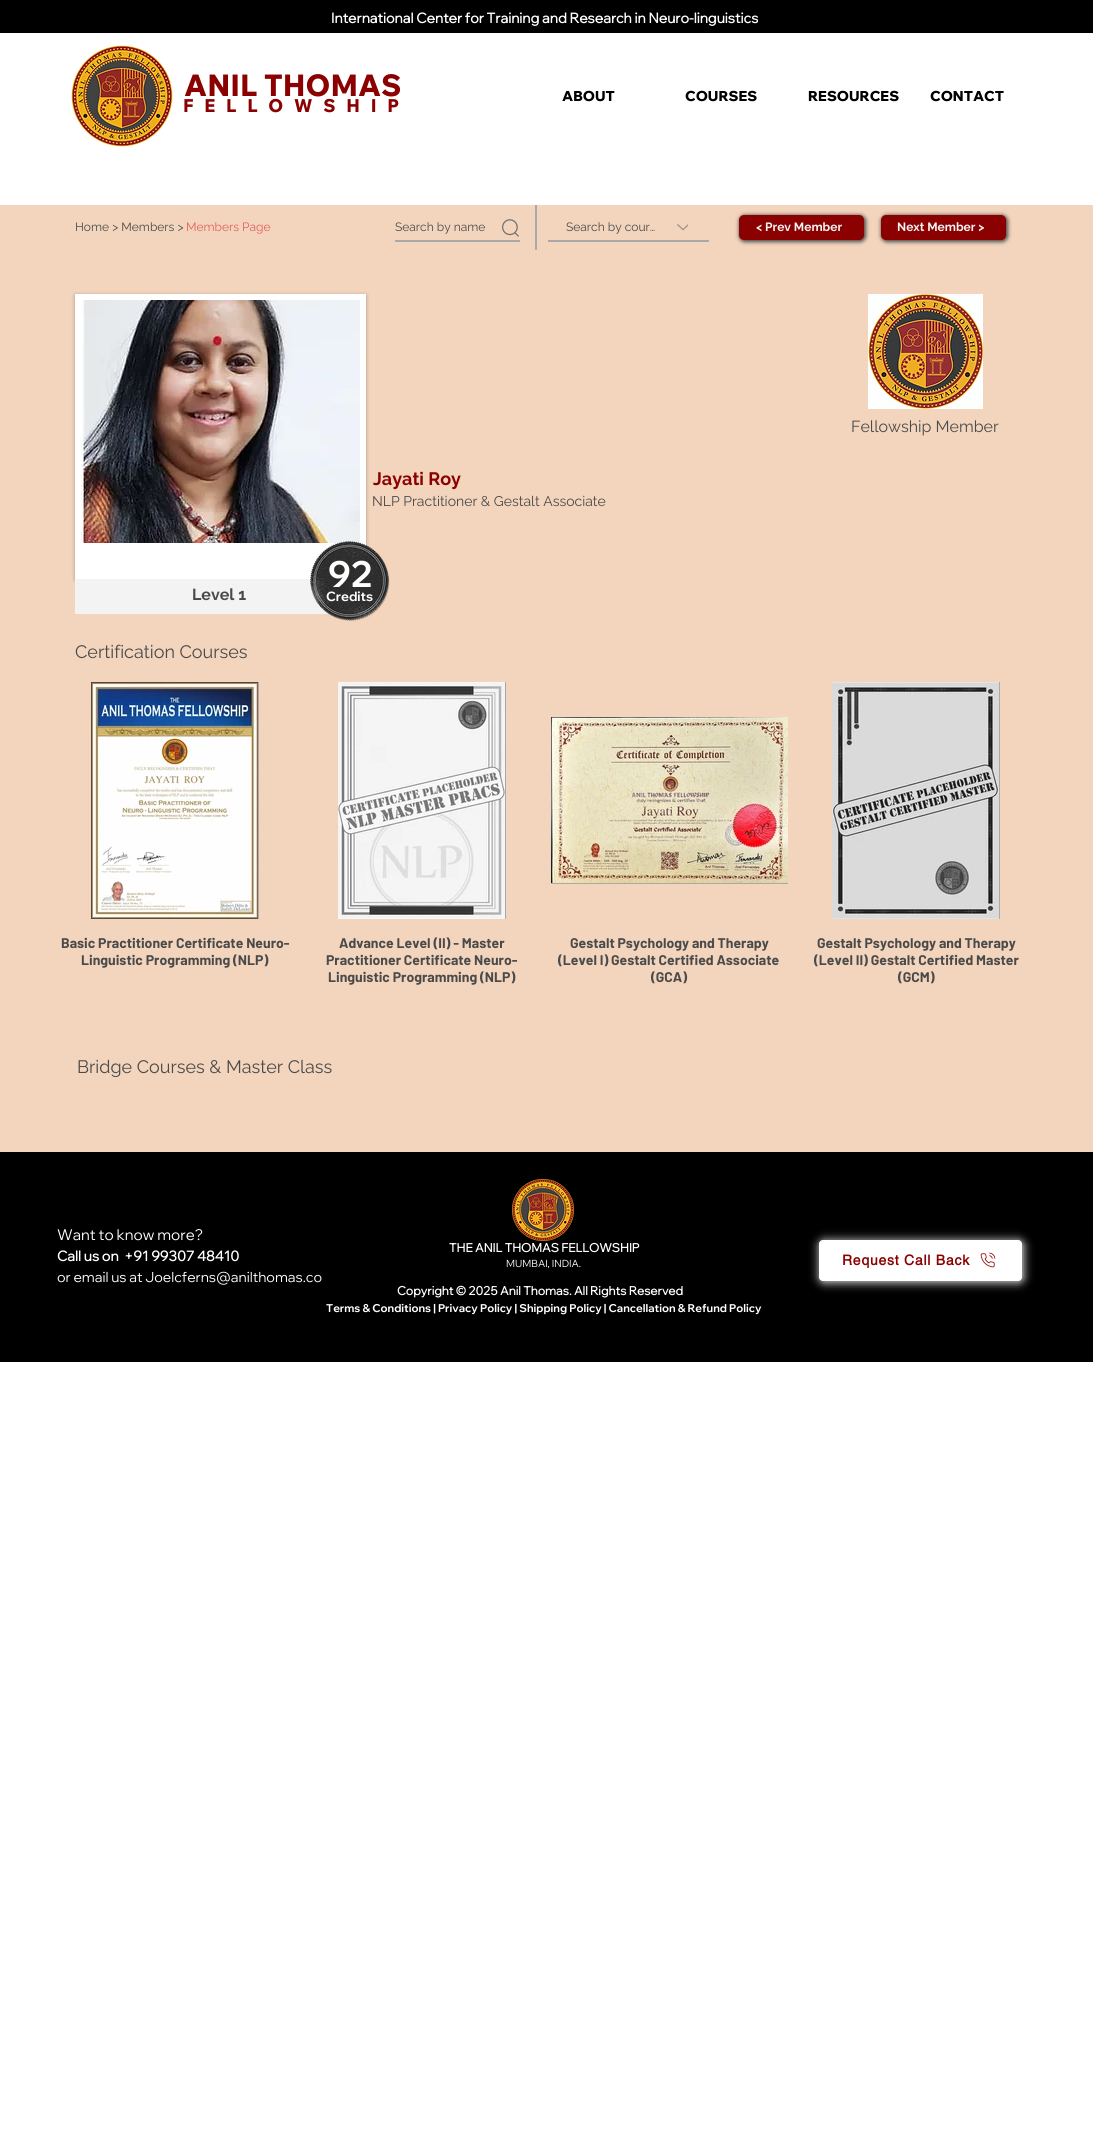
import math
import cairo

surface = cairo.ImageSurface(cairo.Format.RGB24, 1093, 2132)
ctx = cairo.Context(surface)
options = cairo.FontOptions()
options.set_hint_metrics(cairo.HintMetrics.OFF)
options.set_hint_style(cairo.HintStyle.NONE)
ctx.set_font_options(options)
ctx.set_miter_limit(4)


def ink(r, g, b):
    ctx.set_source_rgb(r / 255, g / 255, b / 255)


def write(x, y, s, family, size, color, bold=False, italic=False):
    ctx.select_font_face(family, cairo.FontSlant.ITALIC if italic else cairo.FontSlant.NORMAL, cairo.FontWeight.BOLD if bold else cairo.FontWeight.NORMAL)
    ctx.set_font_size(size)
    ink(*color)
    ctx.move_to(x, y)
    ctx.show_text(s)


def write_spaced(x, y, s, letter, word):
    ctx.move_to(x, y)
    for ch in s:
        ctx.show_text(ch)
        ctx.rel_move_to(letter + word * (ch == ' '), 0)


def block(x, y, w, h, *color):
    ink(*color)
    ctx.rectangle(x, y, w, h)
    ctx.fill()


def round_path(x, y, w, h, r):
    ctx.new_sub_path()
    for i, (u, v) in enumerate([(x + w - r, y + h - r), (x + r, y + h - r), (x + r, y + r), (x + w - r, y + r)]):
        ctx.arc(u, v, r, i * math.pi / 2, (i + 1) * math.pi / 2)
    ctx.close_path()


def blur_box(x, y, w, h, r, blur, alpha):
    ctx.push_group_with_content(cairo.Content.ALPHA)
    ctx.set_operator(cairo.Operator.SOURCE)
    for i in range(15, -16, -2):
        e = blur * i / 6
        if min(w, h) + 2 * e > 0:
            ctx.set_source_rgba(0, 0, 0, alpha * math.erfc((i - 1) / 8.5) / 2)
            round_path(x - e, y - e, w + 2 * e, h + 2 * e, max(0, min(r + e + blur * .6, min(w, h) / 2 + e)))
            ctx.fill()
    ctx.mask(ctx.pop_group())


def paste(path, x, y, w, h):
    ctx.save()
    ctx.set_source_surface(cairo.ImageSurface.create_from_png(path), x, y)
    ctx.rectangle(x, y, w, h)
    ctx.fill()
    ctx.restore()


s1 = dict(family="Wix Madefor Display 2", size=14, color=(255, 255, 254), bold=True)
s2 = dict(family="Wix Madefor Text ExtraBold", size=30, color=(139, 0, 0))
s3 = dict(family="Wix Madefor Display ExtraBold", size=14, color=(0, 0, 0))
s4 = dict(family="Raleway", size=12, color=(74, 74, 74))
s5 = dict(family="Raleway", size=12, color=(226, 95, 95))
s6 = dict(family="Raleway", size=12, color=(243, 243, 243), bold=True)
s7 = dict(family="Raleway", size=16, color=(74, 74, 74))
s8 = dict(family="Raleway", size=18, color=(139, 0, 0), bold=True)
s9 = dict(family="Raleway", size=14, color=(74, 74, 74))
s10 = dict(family="Raleway", size=16, color=(74, 74, 74), bold=True)
s11 = dict(family="Wix Madefor Display", size=36, color=(255, 255, 254), bold=True)
s12 = dict(family="Wix Madefor Display", size=13, color=(255, 255, 254), bold=True)
s13 = dict(family="Raleway", size=18, color=(74, 74, 74))
s14 = dict(family="Barlow", size=14, color=(74, 74, 74), bold=True)
s15 = dict(family="Wix Madefor Display", size=15, color=(255, 255, 254))
s16 = dict(family="Wix Madefor Display", size=14, color=(255, 255, 254))
s17 = dict(family="Wix Madefor Display 2", size=12, color=(255, 255, 254), bold=True)
s18 = dict(family="Wix Madefor Display", size=10, color=(255, 255, 254))
s19 = dict(family="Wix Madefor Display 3", size=11, color=(255, 255, 254), bold=True)

ink(255, 255, 255)
ctx.paint()
block(0, 0, 1093, 33, 0, 0, 0)
write(331, 23, "International Center for Training and Research in Neuro-linguistics", **s1)
paste("pic1.png", 71, 45, 102, 102)
write(184, 96, "ANIL THOMAS", **s2)
ctx.set_font_size(18)
write_spaced(183, 112, "FELLOWSHIP", 10.75, 0)
write(562, 101, "ABOUT", **s3)
write(685, 101, "COURSES", **s3)
write(808, 101, "RESOURCES", **s3)
write(930, 101, "CONTACT", **s3)
block(0, 205, 1093, 947, 243, 213, 189)
write(75, 231, "Home > Members >", **s4)
write(186, 231, "Members Page", **s5)
block(395, 240, 125, 2, 170, 168, 168)
write(395, 231, "Search by name", **s4)
paste("pic2.png", 502, 219, 17, 18)
block(535, 205, 2, 45, 170, 168, 168)
block(548, 240, 161, 2, 170, 168, 168)
write(566, 231, "Search by cour…", **s4)
paste("pic3.png", 677, 224, 11, 7)
ink(74, 74, 74)
blur_box(739, 215, 127, 27, 6, 2, 1)
ink(139, 0, 0)
round_path(739, 215, 125, 25, 5)
ctx.fill()
write(756, 231, "< Prev Member", **s6)
ink(74, 74, 74)
blur_box(881, 215, 127, 27, 6, 2, 1)
ink(139, 0, 0)
round_path(881, 215, 125, 25, 5)
ctx.fill()
write(897, 231, "Next Member >", **s6)
ink(0, 0, 0)
blur_box(75, 295, 291, 285, 0, 2, 0.3)
block(75, 294, 291, 285, 255, 255, 255)
paste("pic4.png", 81, 300, 279, 243)
paste("pic5.png", 868, 294, 115, 115)
write(851, 432, "Fellowship Member", **s7)
write(373, 485, "Jayati Roy", **s8)
write(372, 506, "NLP Practitioner & Gestalt Associate", **s9)
block(75, 579, 259, 35, 243, 243, 243)
write(192, 600, "Level 1", **s10)
paste("pic6.png", 310, 541, 80, 80)
write(328, 587, "92", **s11)
write(326, 601, "Credits", **s12)
write(75, 658, "Certification Courses", **s13)
block(258, 682, 1, 237, 170, 168, 168)
paste("pic7.png", 91, 682, 167, 237)
write(61, 948, "Basic Practitioner Certificate Neuro-", **s14)
write(81, 965, "Linguistic Programming (NLP)", **s14)
block(505, 682, 1, 237, 170, 168, 168)
paste("pic8.png", 338, 682, 167, 237)
write(339, 948, "Advance Level (II) - Master", **s14)
write(326, 965, "Practitioner Certificate Neuro-", **s14)
write(328, 982, "Linguistic Programming (NLP)", **s14)
block(551, 883, 237, 1, 170, 168, 168)
paste("pic9.png", 551, 717, 237, 166)
write(570, 948, "Gestalt Psychology and Therapy", **s14)
write(558, 965, "(Level I) Gestalt Certified Associate", **s14)
write(651, 982, "(GCA)", **s14)
block(999, 682, 1, 237, 170, 168, 168)
paste("pic10.png", 832, 682, 167, 237)
write(817, 948, "Gestalt Psychology and Therapy", **s14)
write(814, 965, "(Level II) Gestalt Certified Master", **s14)
write(898, 982, "(GCM)", **s14)
write(77, 1073, "Bridge Courses & Master Class", **s13)
block(0, 1152, 1093, 210, 0, 0, 0)
write(57, 1240, "Want to know more?", **s15)
write(57, 1261, "Call us on  +91 99307 48410", **s1)
write(57, 1282, "or email us at Joelcferns@anilthomas.co", **s16)
paste("pic11.png", 512, 1179, 62, 62)
write(449, 1252, "THE ANIL THOMAS FELLOWSHIP", **s17)
write(506, 1267, "MUMBAI, INDIA.", **s18)
ink(255, 255, 255)
blur_box(820, 1241, 203, 41, 4, 5, 1)
ink(255, 255, 255)
round_path(819.5, 1240.5, 202, 40, 3.5)
ctx.fill_preserve()
ctx.set_line_width(1)
ctx.stroke()
ctx.select_font_face("helvetica", cairo.FontSlant.NORMAL, cairo.FontWeight.BOLD)
ctx.set_font_size(14)
ink(139, 0, 0)
write_spaced(842, 1265, "Request Call Back", 0.75, 0)
paste("pic12.png", 980, 1252, 16, 16)
write(397, 1295, "Copyright © 2025 Anil Thomas. All Rights Reserved", **s17)
write(326, 1312, "Terms & Conditions | Privacy Policy | Shipping Policy | Cancellation & Refund Policy", **s19)
surface.write_to_png("screenshot.png")
